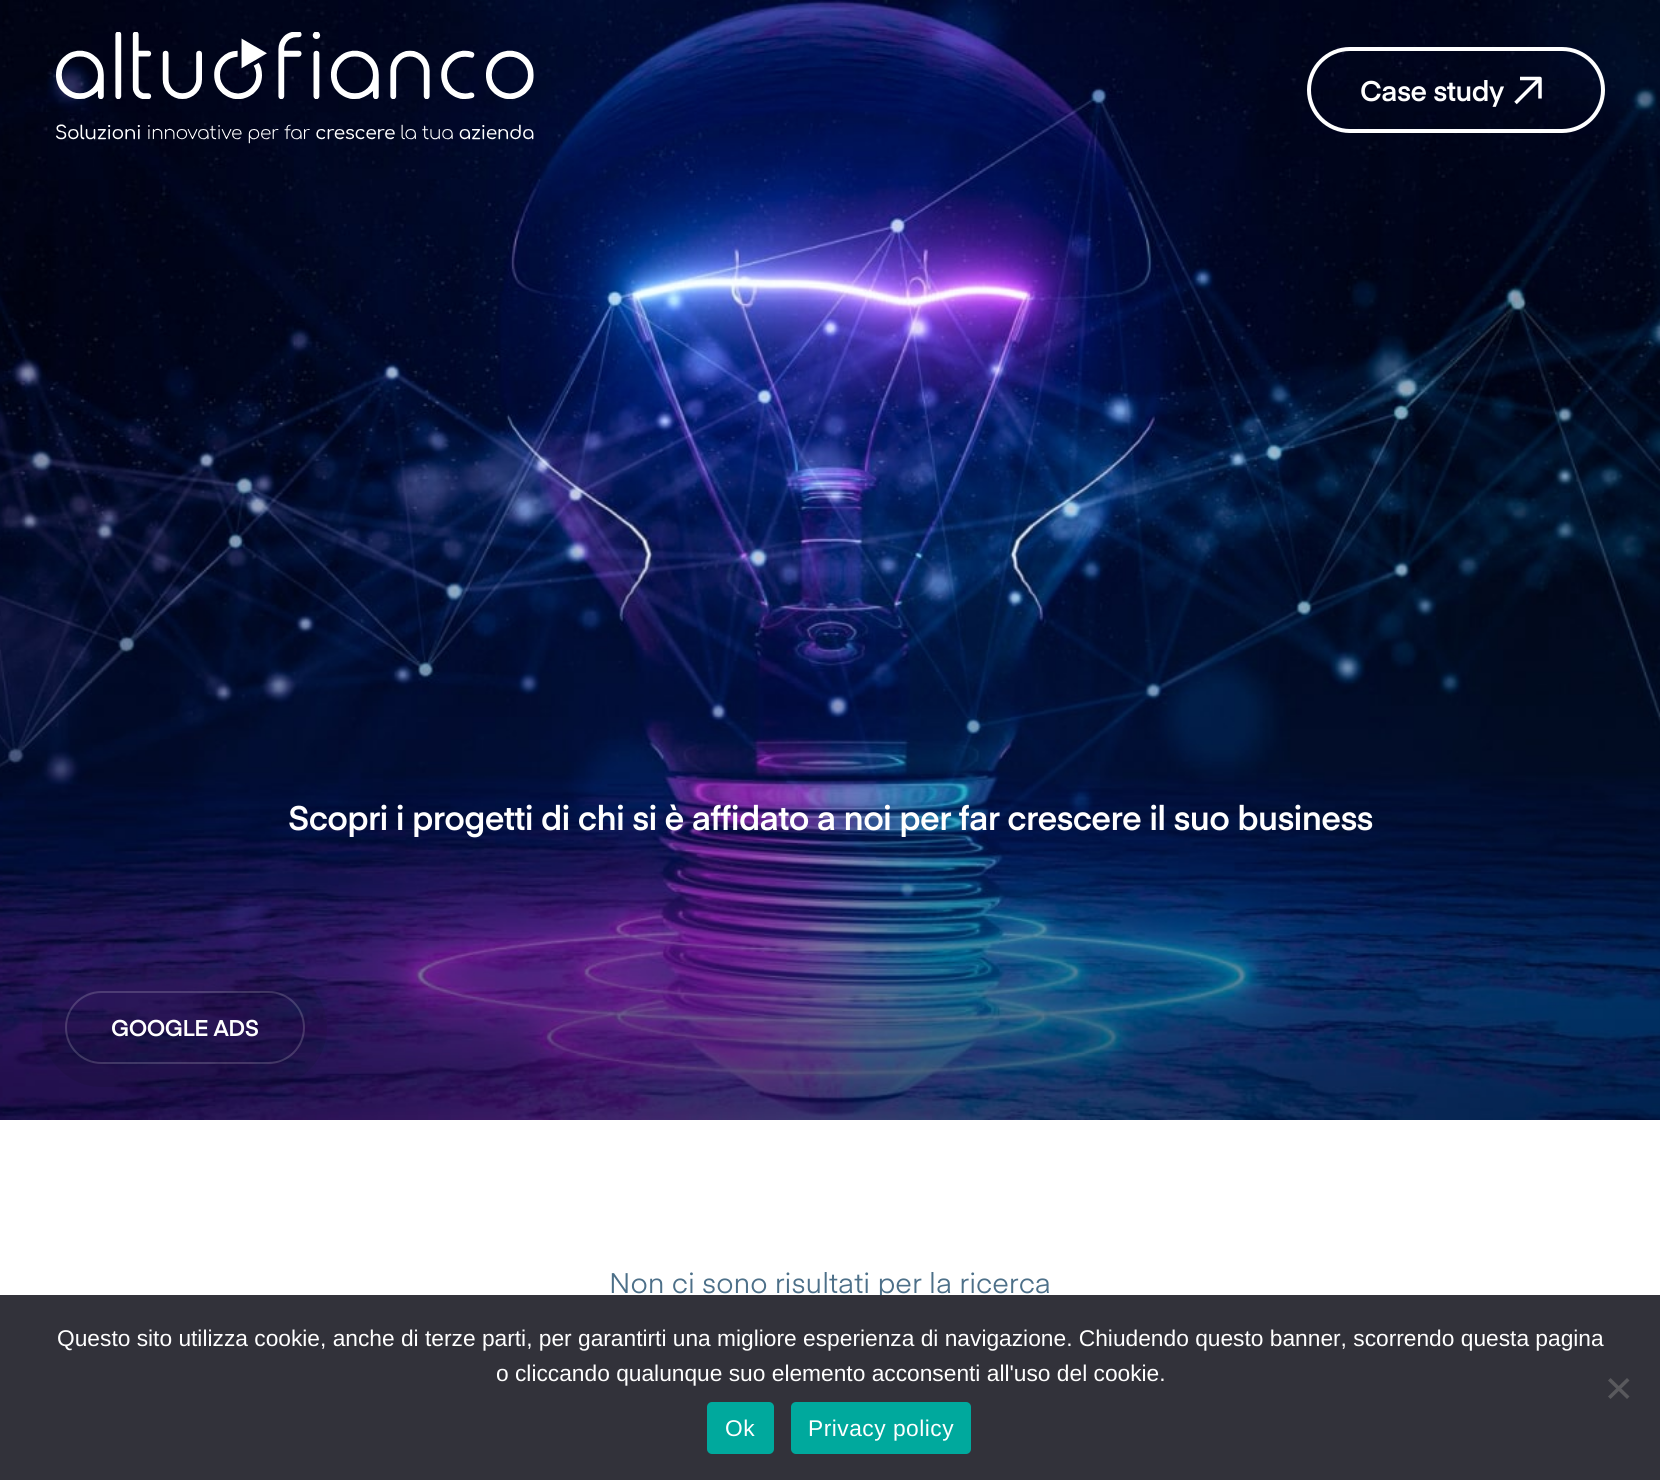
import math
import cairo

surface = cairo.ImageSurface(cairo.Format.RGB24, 1660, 1480)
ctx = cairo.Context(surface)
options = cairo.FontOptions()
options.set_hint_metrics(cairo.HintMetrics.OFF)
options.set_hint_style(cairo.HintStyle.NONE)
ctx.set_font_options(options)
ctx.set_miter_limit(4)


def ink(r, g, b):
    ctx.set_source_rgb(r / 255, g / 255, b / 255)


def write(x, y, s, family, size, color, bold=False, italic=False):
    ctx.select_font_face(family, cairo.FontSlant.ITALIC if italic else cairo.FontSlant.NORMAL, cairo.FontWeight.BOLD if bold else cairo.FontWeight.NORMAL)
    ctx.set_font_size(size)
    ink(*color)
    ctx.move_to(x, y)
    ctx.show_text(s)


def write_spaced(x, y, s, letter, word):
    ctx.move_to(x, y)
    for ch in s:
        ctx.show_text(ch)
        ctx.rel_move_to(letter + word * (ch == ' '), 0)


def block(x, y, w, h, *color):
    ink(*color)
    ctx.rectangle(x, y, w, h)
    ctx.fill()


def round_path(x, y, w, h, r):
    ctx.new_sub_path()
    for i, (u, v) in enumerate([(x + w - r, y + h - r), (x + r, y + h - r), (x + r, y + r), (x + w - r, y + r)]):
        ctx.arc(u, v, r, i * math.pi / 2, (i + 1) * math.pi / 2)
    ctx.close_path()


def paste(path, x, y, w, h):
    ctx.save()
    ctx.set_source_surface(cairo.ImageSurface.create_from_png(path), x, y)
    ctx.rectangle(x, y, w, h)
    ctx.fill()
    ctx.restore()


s1 = dict(family="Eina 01", size=28, color=(76, 111, 136))
s2 = dict(family="Liberation Sans", size=22.75, color=(255, 255, 255))

ink(255, 255, 255)
ctx.paint()
paste("pic2.png", 0, 0, 1660, 1120)
paste("pic1.png", 56, 32, 478, 112)
round_path(1309, 49, 294, 82, 41)
ink(255, 255, 255)
ctx.set_line_width(4)
ctx.stroke()
ctx.select_font_face("Eina 01 SemiBold")
ctx.set_font_size(28)
write_spaced(1360, 101, "Case study", -0.5, 0)
ctx.new_path()
ctx.move_to(1515.5, 103)
ctx.line_to(1540, 78.5)
ctx.move_to(1520, 78.5)
ctx.line_to(1540, 78.5)
ctx.line_to(1540, 98.5)
ctx.set_line_width(3.5)
ctx.set_line_join(cairo.LineJoin.ROUND)
ctx.stroke()
ctx.set_font_size(33.6)
write_spaced(288, 830, "Scopri i progetti di chi si è affidato a noi per far crescere il suo business", -0.67, 0)
ctx.set_source_rgba(0, 0.043, 0.051, 0.1)
round_path(42, 968, 285, 119, 59.5)
ctx.fill()
round_path(66, 992, 238, 71, 35.5)
ctx.set_source_rgba(1, 1, 1, 0.17)
ctx.set_line_width(2)
ctx.set_line_join(cairo.LineJoin.MITER)
ctx.stroke()
ctx.set_font_size(22.5)
ink(255, 255, 255)
write_spaced(111, 1036, "GOOGLE ADS", -0.5, 0)
write(609, 1293, "Non ci sono risultati per la ricerca", **s1)
block(0, 1295, 1660, 185, 50, 50, 58)
write(57, 1346, "Questo sito utilizza cookie, anche di terze parti, per garantirti una migliore esperienza di navigazione. Chiudendo questo banner, scorrendo questa pagina", **s2)
write(496, 1381, "o cliccando qualunque suo elemento acconsenti all'uso del cookie.", **s2)
ink(89, 89, 93)
ctx.new_path()
ctx.move_to(1627, 1378)
ctx.line_to(1629.5, 1380.5)
ctx.line_to(1610.5, 1399)
ctx.line_to(1608, 1396.5)
ctx.close_path()
ctx.fill()
ctx.new_path()
ctx.move_to(1608, 1380.5)
ctx.line_to(1610.5, 1378)
ctx.line_to(1629.5, 1396.5)
ctx.line_to(1627, 1399)
ctx.close_path()
ctx.fill()
ink(0, 169, 157)
round_path(707, 1402, 67, 52, 5)
ctx.fill()
ink(255, 255, 255)
write_spaced(725, 1436, "Ok", 0.5, 0)
ink(0, 169, 157)
round_path(791, 1402, 180, 52, 5)
ctx.fill()
ink(255, 255, 255)
write_spaced(808, 1436, "Privacy policy", 0.5, 0)
surface.write_to_png("screenshot.png")
